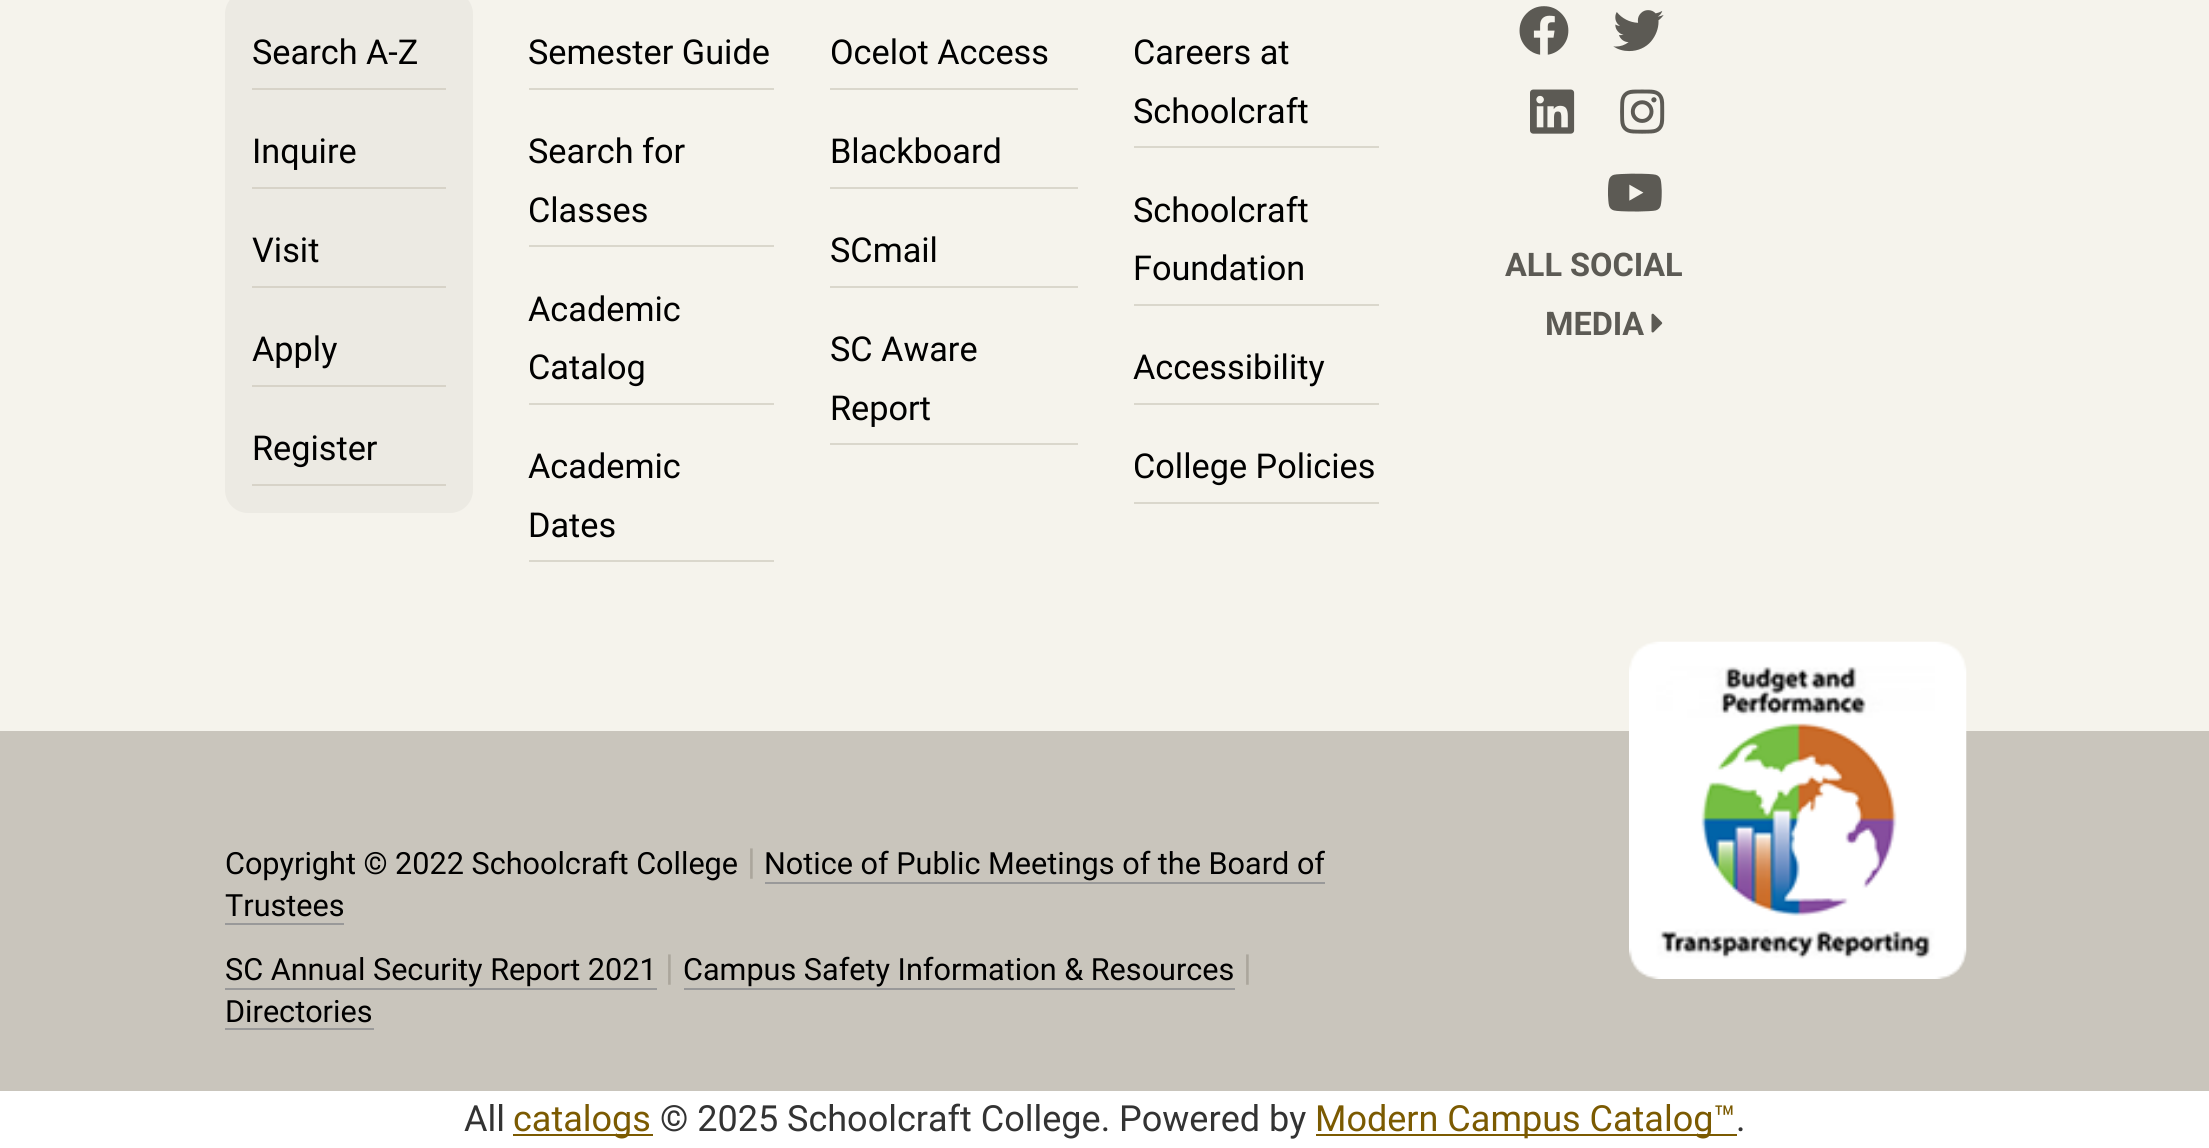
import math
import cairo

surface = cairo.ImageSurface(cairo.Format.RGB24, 2209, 1148)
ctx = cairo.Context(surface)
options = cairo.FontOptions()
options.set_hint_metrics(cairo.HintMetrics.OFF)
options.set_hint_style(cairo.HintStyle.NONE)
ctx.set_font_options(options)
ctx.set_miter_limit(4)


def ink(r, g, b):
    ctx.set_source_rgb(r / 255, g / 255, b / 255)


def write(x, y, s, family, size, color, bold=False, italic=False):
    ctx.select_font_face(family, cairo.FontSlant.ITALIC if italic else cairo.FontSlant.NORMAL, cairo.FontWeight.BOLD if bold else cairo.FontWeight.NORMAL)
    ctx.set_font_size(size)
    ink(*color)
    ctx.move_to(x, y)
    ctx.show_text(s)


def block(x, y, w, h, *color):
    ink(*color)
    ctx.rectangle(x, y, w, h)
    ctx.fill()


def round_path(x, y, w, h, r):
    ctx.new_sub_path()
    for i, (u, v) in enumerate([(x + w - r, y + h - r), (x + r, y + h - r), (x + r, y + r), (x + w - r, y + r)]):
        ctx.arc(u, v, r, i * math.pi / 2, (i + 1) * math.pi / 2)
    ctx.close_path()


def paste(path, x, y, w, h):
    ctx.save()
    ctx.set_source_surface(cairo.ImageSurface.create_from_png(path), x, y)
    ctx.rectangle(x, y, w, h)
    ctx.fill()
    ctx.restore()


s1 = dict(family="Roboto", size=34.25, color=(0, 0, 0))
s2 = dict(family="Roboto", size=32.5, color=(92, 90, 84), bold=True)
s3 = dict(family="Roboto", size=30.6, color=(0, 0, 0))
s4 = dict(family="Roboto", size=36, color=(171, 166, 156))
s5 = dict(family="Roboto", size=36, color=(51, 51, 51))
s6 = dict(family="Roboto", size=36, color=(123, 90, 1))

ink(255, 255, 255)
ctx.paint()
block(0, 0, 2209, 731, 245, 243, 236)
ink(236, 234, 227)
round_path(225, -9, 248, 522, 23)
ctx.fill()
block(252, 88, 194, 2, 215, 211, 200)
write(252, 64, "Search A-Z", **s1)
block(252, 187, 194, 2, 215, 211, 200)
write(252, 163, "Inquire", **s1)
block(252, 286, 194, 2, 215, 211, 200)
write(252, 262, "Visit", **s1)
block(252, 385, 194, 2, 215, 211, 200)
write(252, 361, "Apply", **s1)
block(252, 484, 194, 2, 215, 211, 200)
write(252, 460, "Register", **s1)
block(529, 88, 245, 2, 218, 215, 204)
write(528, 64, "Semester Guide", **s1)
block(529, 245, 245, 2, 218, 215, 204)
write(528, 163, "Search for", **s1)
write(528, 222, "Classes", **s1)
block(529, 403, 245, 2, 218, 215, 204)
write(528, 321, "Academic", **s1)
write(528, 379, "Catalog", **s1)
block(529, 560, 245, 2, 218, 215, 204)
write(528, 478, "Academic", **s1)
write(528, 537, "Dates", **s1)
block(830, 88, 248, 2, 218, 215, 204)
write(830, 64, "Ocelot Access", **s1)
block(830, 187, 248, 2, 218, 215, 204)
write(830, 163, "Blackboard", **s1)
block(830, 286, 248, 2, 218, 215, 204)
write(830, 262, "SCmail", **s1)
block(830, 443, 248, 2, 218, 215, 204)
write(830, 361, "SC Aware", **s1)
write(830, 420, "Report", **s1)
block(1134, 146, 245, 2, 218, 215, 204)
write(1133, 64, "Careers at", **s1)
write(1133, 123, "Schoolcraft", **s1)
block(1134, 304, 245, 2, 218, 215, 204)
write(1133, 222, "Schoolcraft", **s1)
write(1133, 280, "Foundation", **s1)
block(1134, 403, 245, 2, 218, 215, 204)
write(1133, 379, "Accessibility", **s1)
block(1134, 502, 245, 2, 218, 215, 204)
write(1133, 478, "College Policies", **s1)
paste("pic1.png", 1519, 6, 50, 49)
paste("pic2.png", 1613, 10, 51, 42)
paste("pic3.png", 1530, 89, 45, 45)
paste("pic4.png", 1620, 89, 45, 45)
paste("pic5.png", 1608, 173, 54, 39)
write(1505, 276, "ALL SOCIAL", **s2)
write(1545, 335, "MEDIA", **s2)
paste("pic6.png", 1651, 313, 12, 20)
block(0, 731, 2209, 360, 201, 197, 188)
write(225, 874, "Copyright © 2022 Schoolcraft College", **s3)
write(747, 874, "|", **s4)
write(764, 874, "Notice of Public Meetings of the Board of", **s3)
block(765, 882, 560, 2, 153, 153, 153)
write(225, 916, "Trustees", **s3)
block(225, 923, 119, 2, 153, 153, 153)
write(225, 980, "SC Annual Security Report 2021", **s3)
block(225, 988, 432, 2, 153, 153, 153)
write(665, 980, "|", **s4)
write(683, 980, "Campus Safety Information & Resources", **s3)
block(684, 988, 551, 2, 153, 153, 153)
write(1243, 980, "|", **s4)
write(225, 1022, "Directories", **s3)
block(225, 1028, 149, 2, 153, 153, 153)
paste("pic7.png", 1629, 641, 338, 338)
write(464, 1131, "All", **s5)
block(513, 1134, 140, 2, 123, 90, 1)
write(513, 1131, "catalogs", **s6)
write(660, 1131, "© 2025 Schoolcraft College. Powered by", **s5)
block(1316, 1134, 421, 2, 123, 90, 1)
write(1315, 1131, "Modern Campus Catalog™", **s6)
write(1736, 1131, ".", **s5)
surface.write_to_png("screenshot.png")
